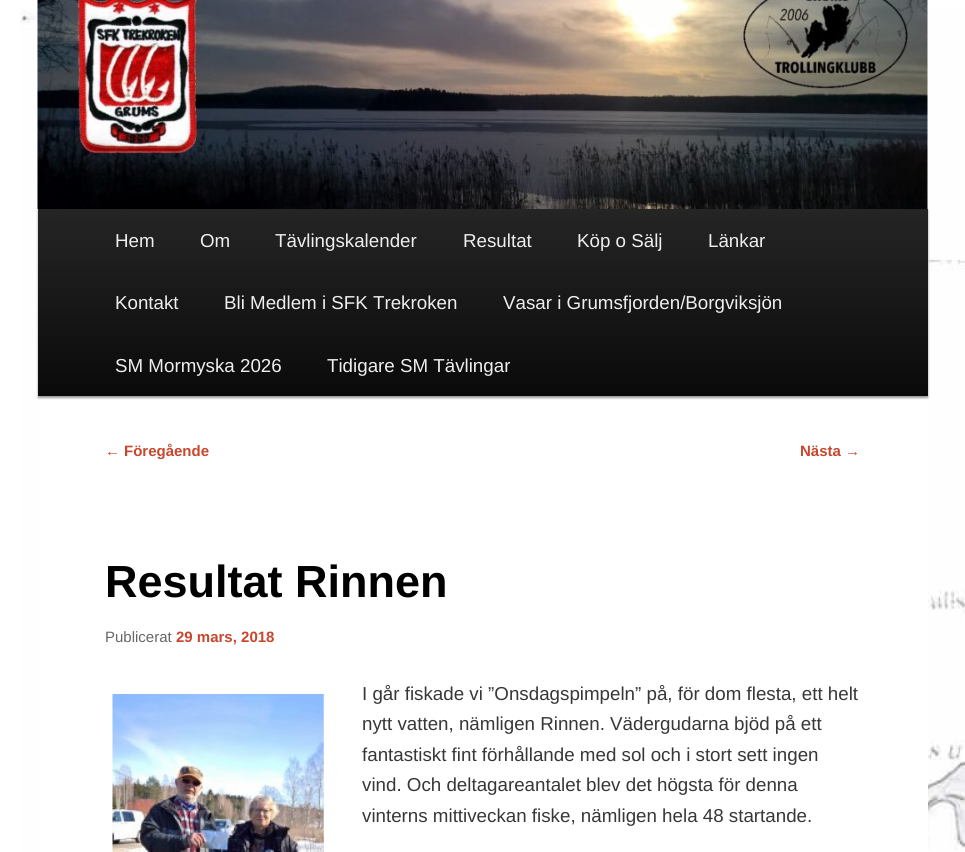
import math
import cairo

surface = cairo.ImageSurface(cairo.Format.RGB24, 965, 852)
ctx = cairo.Context(surface)
options = cairo.FontOptions()
options.set_hint_metrics(cairo.HintMetrics.OFF)
options.set_hint_style(cairo.HintStyle.NONE)
ctx.set_font_options(options)
ctx.set_miter_limit(4)


def ink(r, g, b):
    ctx.set_source_rgb(r / 255, g / 255, b / 255)


def write(x, y, s, family, size, color, bold=False, italic=False):
    ctx.select_font_face(family, cairo.FontSlant.ITALIC if italic else cairo.FontSlant.NORMAL, cairo.FontWeight.BOLD if bold else cairo.FontWeight.NORMAL)
    ctx.set_font_size(size)
    ink(*color)
    ctx.move_to(x, y)
    ctx.show_text(s)


def block(x, y, w, h, *color):
    ink(*color)
    ctx.rectangle(x, y, w, h)
    ctx.fill()


def round_path(x, y, w, h, r):
    ctx.new_sub_path()
    for i, (u, v) in enumerate([(x + w - r, y + h - r), (x + r, y + h - r), (x + r, y + r), (x + w - r, y + r)]):
        ctx.arc(u, v, r, i * math.pi / 2, (i + 1) * math.pi / 2)
    ctx.close_path()


def blur_box(x, y, w, h, r, blur, alpha):
    ctx.push_group_with_content(cairo.Content.ALPHA)
    ctx.set_operator(cairo.Operator.SOURCE)
    for i in range(15, -16, -2):
        e = blur * i / 6
        if min(w, h) + 2 * e > 0:
            ctx.set_source_rgba(0, 0, 0, alpha * math.erfc((i - 1) / 8.5) / 2)
            round_path(x - e, y - e, w + 2 * e, h + 2 * e, max(0, min(r + e + blur * .6, min(w, h) / 2 + e)))
            ctx.fill()
    ctx.mask(ctx.pop_group())


def paste(path, x, y, w, h):
    ctx.save()
    ctx.set_source_surface(cairo.ImageSurface.create_from_png(path), x, y)
    ctx.rectangle(x, y, w, h)
    ctx.fill()
    ctx.restore()


s1 = dict(family="Liberation Sans", size=18.75, color=(238, 238, 238))
s2 = dict(family="Liberation Sans", size=15, color=(198, 71, 45))
s3 = dict(family="Liberation Sans", size=15, color=(198, 71, 45), bold=True)
s4 = dict(family="Liberation Sans", size=45, color=(0, 0, 0), bold=True)
s5 = dict(family="Liberation Sans", size=15, color=(102, 102, 102))
s6 = dict(family="Liberation Sans", size=18.75, color=(55, 55, 55))

ink(255, 255, 255)
ctx.paint()
paste("pic1.png", 20, 10, 945, 842)
block(40, 10, 888, 842, 255, 255, 255)
ink(0, 0, 0)
blur_box(38, 210, 890, 188, 0, 1, 0.4)
paste("pic2.png", 37, 0, 891, 209)
gradient = cairo.LinearGradient(483, 209, 483, 396)
gradient.add_color_stop_rgba(0, 0.145, 0.145, 0.145, 1)
gradient.add_color_stop_rgba(1, 0.039, 0.039, 0.039, 1)
ctx.set_source(gradient)
ctx.rectangle(38, 209, 890, 187)
ctx.fill()
write(115, 247, "Hem", **s1)
write(200, 247, "Om", **s1)
write(275, 247, "Tävlingskalender", **s1)
write(463, 247, "Resultat", **s1)
write(577, 247, "Köp o Sälj", **s1)
write(708, 247, "Länkar", **s1)
write(115, 309, "Kontakt", **s1)
write(224, 309, "Bli Medlem i SFK Trekroken", **s1)
write(503, 309, "Vasar i Grumsfjorden/Borgviksjön", **s1)
write(115, 372, "SM Mormyska 2026", **s1)
write(327, 372, "Tidigare SM Tävlingar", **s1)
write(105, 456, "←", **s2)
write(124, 456, "Föregående", **s3)
write(800, 456, "Nästa", **s3)
write(845, 456, "→", **s2)
write(105, 597, "Resultat Rinnen", **s4)
write(105, 642, "Publicerat", **s5)
write(176, 642, "29 mars, 2018", **s3)
paste("pic3.png", 112, 694, 212, 158)
write(362, 700, "I går fiskade vi ”Onsdagspimpeln” på, för dom flesta, ett helt", **s6)
write(362, 730, "nytt vatten, nämligen Rinnen. Vädergudarna bjöd på ett", **s6)
write(362, 761, "fantastiskt fint förhållande med sol och i stort sett ingen", **s6)
write(362, 791, "vind. Och deltagareantalet blev det högsta för denna", **s6)
write(362, 822, "vinterns mittiveckan fiske, nämligen hela 48 startande.", **s6)
surface.write_to_png("screenshot.png")
